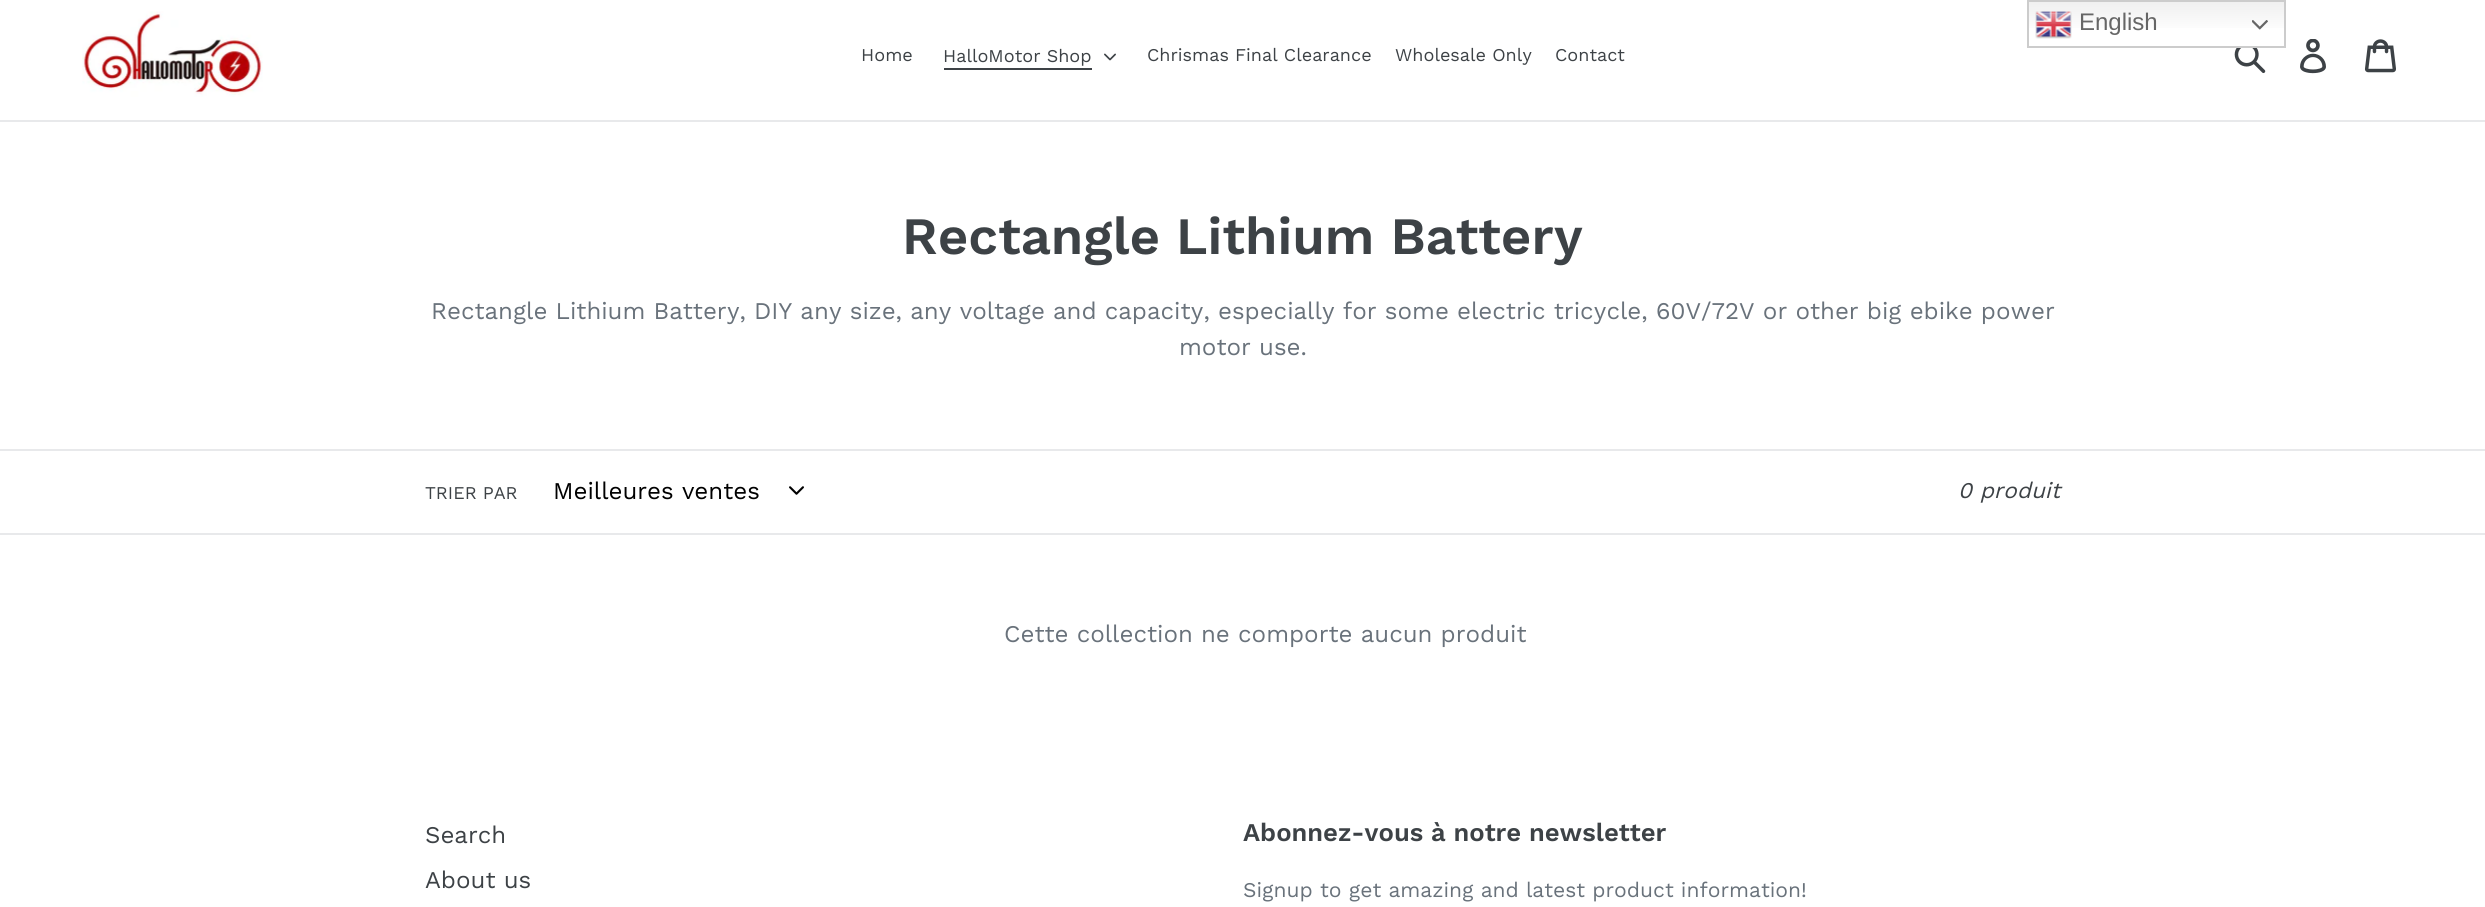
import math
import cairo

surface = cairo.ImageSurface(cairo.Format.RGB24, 2485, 907)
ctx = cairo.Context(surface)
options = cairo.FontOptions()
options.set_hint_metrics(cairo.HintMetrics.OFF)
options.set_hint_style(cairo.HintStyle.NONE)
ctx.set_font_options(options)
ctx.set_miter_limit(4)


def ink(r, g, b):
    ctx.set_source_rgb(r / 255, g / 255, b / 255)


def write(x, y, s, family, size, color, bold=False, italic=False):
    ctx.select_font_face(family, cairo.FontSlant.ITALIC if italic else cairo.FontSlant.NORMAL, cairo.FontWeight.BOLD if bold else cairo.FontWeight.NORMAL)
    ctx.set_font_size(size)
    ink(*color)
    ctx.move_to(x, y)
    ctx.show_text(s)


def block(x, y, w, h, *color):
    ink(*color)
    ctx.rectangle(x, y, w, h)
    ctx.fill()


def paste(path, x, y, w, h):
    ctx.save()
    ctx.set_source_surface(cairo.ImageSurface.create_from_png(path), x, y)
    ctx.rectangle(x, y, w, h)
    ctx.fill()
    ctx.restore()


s1 = dict(family="Liberation Sans", size=24, color=(102, 102, 102))
s2 = dict(family="Work Sans", size=18, color=(61, 66, 70))
s3 = dict(family="Work Sans SemiBold", size=52.5, color=(61, 66, 70))
s4 = dict(family="Work Sans", size=24, color=(105, 114, 123))
s5 = dict(family="Work Sans", size=24, color=(0, 0, 0))
s6 = dict(family="Work Sans", size=22.5, color=(61, 66, 70), italic=True)
s7 = dict(family="Work Sans", size=24, color=(61, 66, 70))
s8 = dict(family="Work Sans SemiBold", size=25.5, color=(61, 66, 70))
s9 = dict(family="Work Sans", size=21, color=(105, 114, 123))

ink(255, 255, 255)
ctx.paint()
gradient = cairo.LinearGradient(2156, 0, 2156, 48)
gradient.add_color_stop_rgba(0, 0.937, 0.937, 0.937, 1)
gradient.add_color_stop_rgba(0.7, 1, 1, 1, 1)
ctx.set_source(gradient)
ctx.rectangle(2029, 2, 255, 26)
ctx.fill()
ctx.rectangle(2028, 1, 257, 46)
ink(204, 204, 204)
ctx.stroke()
paste("pic1.png", 2035, 11, 37, 28)
write(2079, 30, "English", **s1)
paste("pic2.png", 2252, 20, 16, 10)
block(0, 120, 2485, 2, 232, 233, 235)
paste("pic3.png", 82, 11, 181, 86)
write(861, 61, "Home", **s2)
write(943, 62, "HalloMotor Shop", **s2)
block(944, 68, 148, 2, 61, 66, 70)
paste("pic4.png", 1104, 53, 12, 8)
write(1147, 61, "Chrismas Final Clearance", **s2)
write(1395, 61, "Wholesale Only", **s2)
write(1555, 61, "Contact", **s2)
paste("pic5.png", 2234, 48, 32, 26)
paste("pic6.png", 2300, 39, 26, 35)
paste("pic7.png", 2364, 39, 32, 34)
write(902, 254, "Rectangle Lithium Battery", **s3)
write(431, 319, "Rectangle Lithium Battery, DIY any size, any voltage and capacity, especially for some electric tricycle, 60V/72V or other big ebike power", **s4)
write(1179, 355, "motor use.", **s4)
block(0, 449, 2485, 2, 232, 233, 235)
block(0, 533, 2485, 2, 232, 233, 235)
write(425, 499, "TRIER PAR", **s2)
write(553, 499, "Meilleures ventes", **s5)
paste("pic8.png", 789, 486, 15, 9)
write(1958, 498, "0 produit", **s6)
write(1004, 642, "Cette collection ne comporte aucun produit", **s4)
write(425, 843, "Search", **s7)
write(425, 888, "About us", **s7)
write(1243, 841, "Abonnez-vous à notre newsletter", **s8)
write(1243, 897, "Signup to get amazing and latest product information!", **s9)
surface.write_to_png("screenshot.png")
